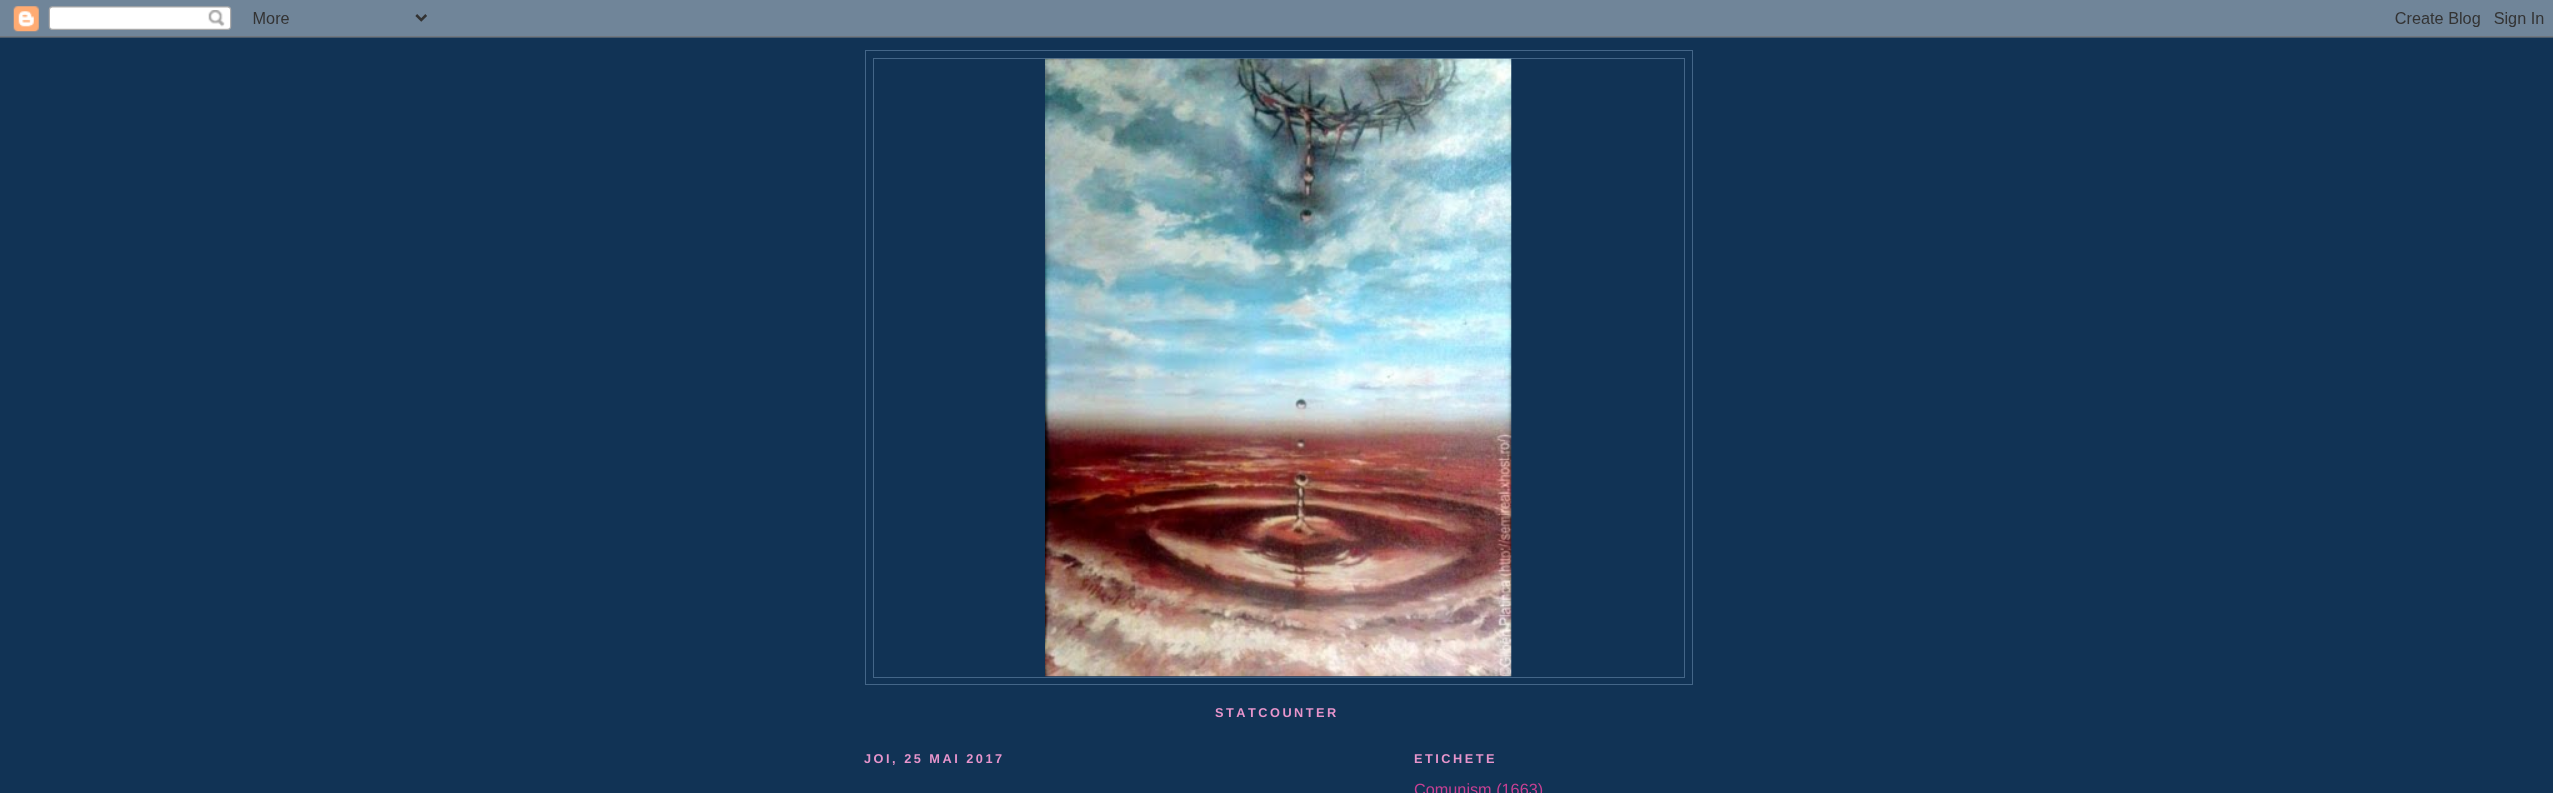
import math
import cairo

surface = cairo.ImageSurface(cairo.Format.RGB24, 2553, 793)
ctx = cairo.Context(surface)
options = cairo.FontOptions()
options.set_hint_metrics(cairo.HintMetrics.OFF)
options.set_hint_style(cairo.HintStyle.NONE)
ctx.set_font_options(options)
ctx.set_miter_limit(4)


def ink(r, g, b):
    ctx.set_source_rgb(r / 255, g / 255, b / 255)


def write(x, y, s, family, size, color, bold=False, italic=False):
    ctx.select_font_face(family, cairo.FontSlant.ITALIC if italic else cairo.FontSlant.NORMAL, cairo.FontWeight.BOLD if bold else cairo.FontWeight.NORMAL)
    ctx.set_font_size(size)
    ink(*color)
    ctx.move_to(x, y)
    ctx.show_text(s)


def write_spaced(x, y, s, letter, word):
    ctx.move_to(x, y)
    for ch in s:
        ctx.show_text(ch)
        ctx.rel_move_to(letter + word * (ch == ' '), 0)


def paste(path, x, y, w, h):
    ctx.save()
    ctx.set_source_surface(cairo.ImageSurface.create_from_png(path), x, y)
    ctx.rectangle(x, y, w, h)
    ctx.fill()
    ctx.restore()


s1 = dict(family="Liberation Sans", size=16.25, color=(201, 64, 147))

ink(17, 51, 85)
ctx.paint()
paste("pic1.png", 0, 0, 2553, 38)
ctx.rectangle(865.5, 50.5, 827, 634)
ink(68, 102, 136)
ctx.set_line_width(1)
ctx.stroke()
ctx.rectangle(873.5, 58.5, 811, 619)
ctx.stroke()
paste("pic2.png", 1045, 58, 467, 619)
ctx.select_font_face("Liberation Sans", cairo.FontSlant.NORMAL, cairo.FontWeight.BOLD)
ctx.set_font_size(12.75)
ink(232, 149, 204)
write_spaced(1215, 717, "STATCOUNTER", 2.5, 0)
write_spaced(864, 763, "JOI, 25 MAI 2017", 2.5, 0)
write_spaced(1414, 763, "ETICHETE", 2.5, 0)
write(1414, 795, "Comunism (1663)", **s1)
surface.write_to_png("screenshot.png")
